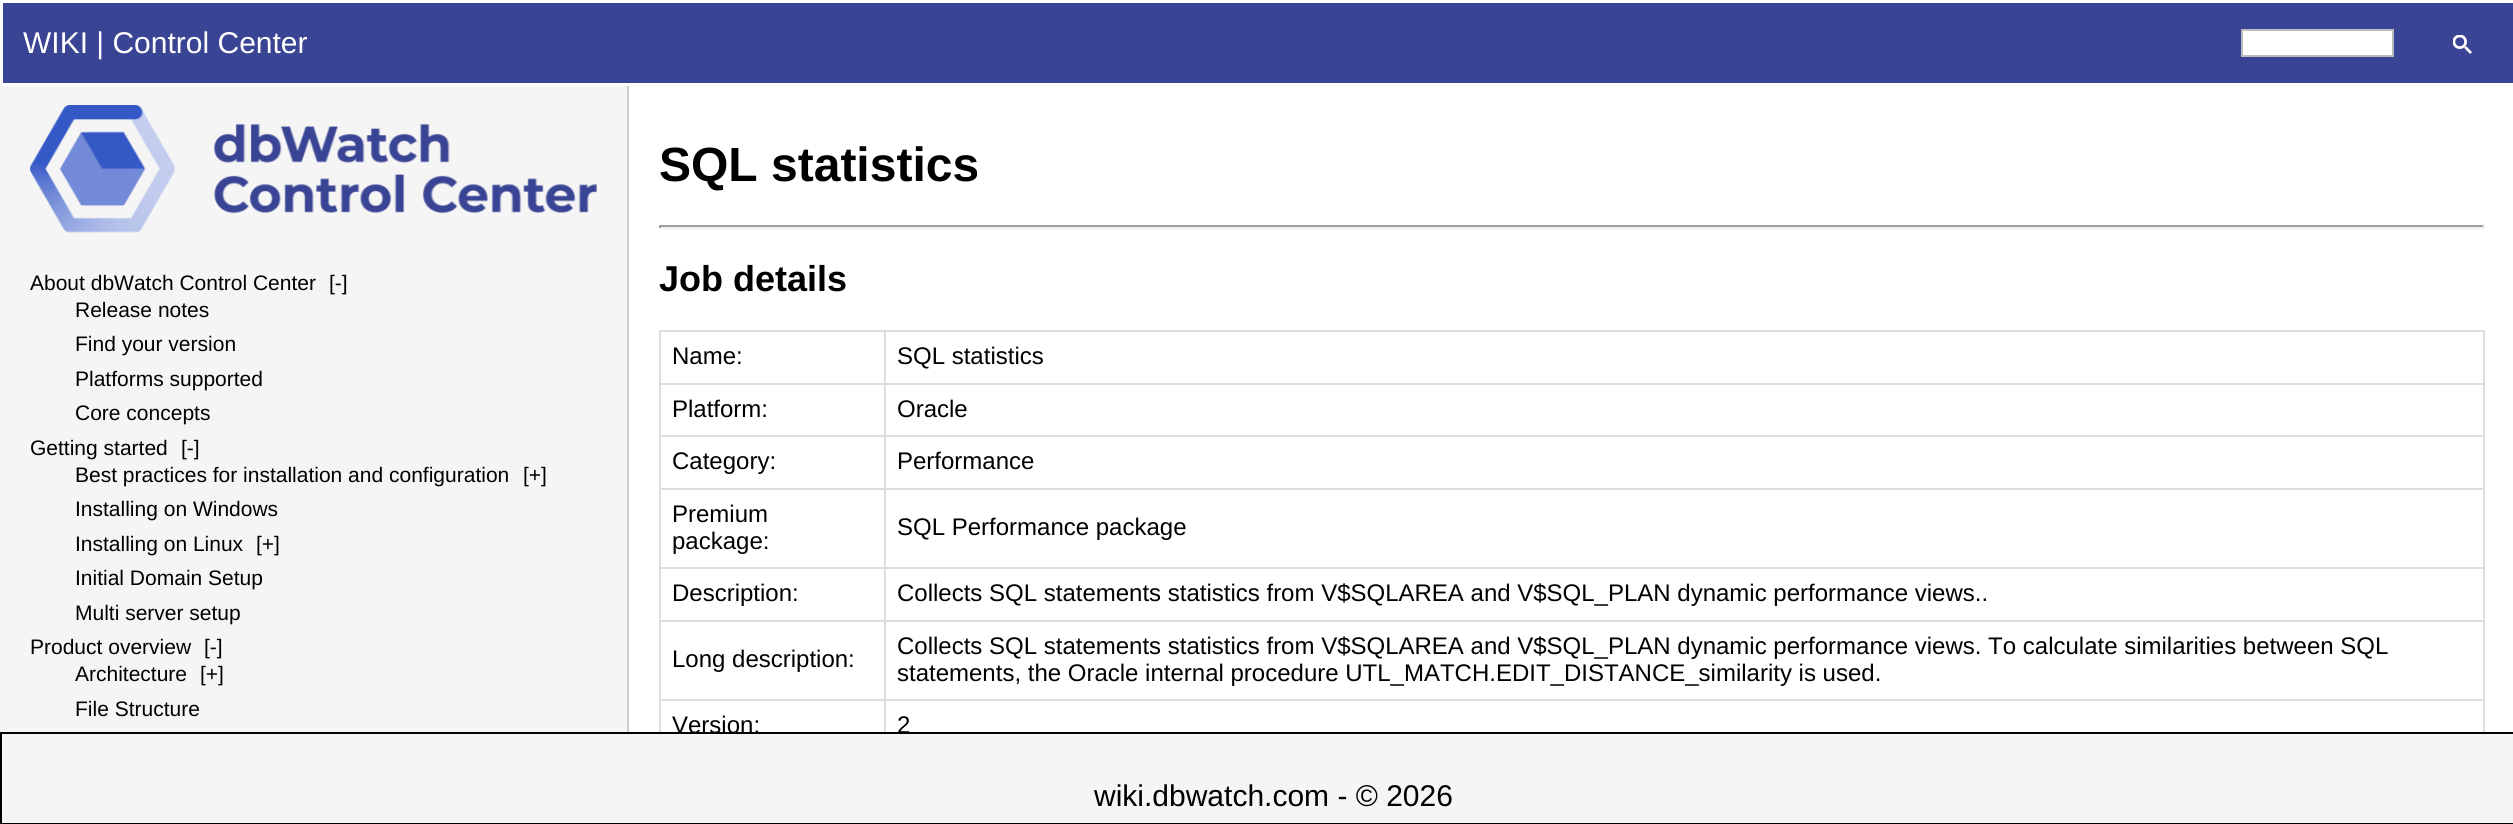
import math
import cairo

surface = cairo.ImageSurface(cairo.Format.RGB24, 2513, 824)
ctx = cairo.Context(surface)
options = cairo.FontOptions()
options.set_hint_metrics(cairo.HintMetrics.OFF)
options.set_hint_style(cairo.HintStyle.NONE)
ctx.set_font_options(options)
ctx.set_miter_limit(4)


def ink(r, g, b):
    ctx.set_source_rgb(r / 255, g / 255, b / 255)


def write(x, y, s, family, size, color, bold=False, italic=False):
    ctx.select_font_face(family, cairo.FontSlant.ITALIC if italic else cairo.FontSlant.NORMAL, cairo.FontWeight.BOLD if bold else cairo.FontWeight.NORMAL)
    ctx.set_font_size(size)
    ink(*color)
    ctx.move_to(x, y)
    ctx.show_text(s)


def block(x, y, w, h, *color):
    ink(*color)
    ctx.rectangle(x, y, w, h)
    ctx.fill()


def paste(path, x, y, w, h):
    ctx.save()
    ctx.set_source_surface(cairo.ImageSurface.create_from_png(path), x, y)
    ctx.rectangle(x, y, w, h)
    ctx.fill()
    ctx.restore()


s1 = dict(family="Liberation Sans", size=30, color=(255, 255, 255))
s2 = dict(family="Liberation Sans", size=21, color=(0, 0, 0))
s3 = dict(family="Liberation Sans", size=48, color=(0, 0, 0), bold=True)
s4 = dict(family="Liberation Sans", size=36, color=(0, 0, 0), bold=True)
s5 = dict(family="Liberation Sans", size=24, color=(0, 0, 0))
s6 = dict(family="Liberation Sans", size=30, color=(0, 0, 0))

ink(255, 255, 255)
ctx.paint()
block(3, 3, 2510, 80, 57, 68, 148)
write(23, 53, "WIKI | Control Center", **s1)
ctx.rectangle(2242, 30, 151, 26)
ctx.fill_preserve()
ink(187, 187, 187)
ctx.stroke()
paste("pic1.png", 2453, 35, 19, 19)
block(0, 86, 627, 646, 245, 245, 245)
block(627, 86, 2, 646, 204, 204, 204)
paste("pic2.png", 30, 105, 567, 128)
write(30, 290, "About dbWatch Control Center", **s2)
write(329, 290, "[-]", **s2)
write(75, 317, "Release notes", **s2)
write(75, 351, "Find your version", **s2)
write(75, 386, "Platforms supported", **s2)
write(75, 420, "Core concepts", **s2)
write(30, 455, "Getting started", **s2)
write(181, 455, "[-]", **s2)
write(75, 482, "Best practices for installation and configuration", **s2)
write(523, 482, "[+]", **s2)
write(75, 516, "Installing on Windows", **s2)
write(75, 551, "Installing on Linux", **s2)
write(256, 551, "[+]", **s2)
write(75, 585, "Initial Domain Setup", **s2)
write(75, 620, "Multi server setup", **s2)
write(30, 654, "Product overview", **s2)
write(204, 654, "[-]", **s2)
write(75, 681, "Architecture", **s2)
write(200, 681, "[+]", **s2)
write(75, 716, "File Structure", **s2)
write(659, 181, "SQL statistics", **s3)
block(659, 225, 1825, 2, 159, 159, 159)
block(2483, 225, 2, 3, 238, 238, 238)
block(659, 227, 1825, 2, 238, 238, 238)
block(659, 225, 2, 3, 159, 159, 159)
write(659, 291, "Job details", **s4)
block(884, 330, 1600, 2, 221, 221, 221)
block(884, 383, 1600, 2, 221, 221, 221)
block(884, 435, 1600, 2, 221, 221, 221)
block(884, 488, 1600, 2, 221, 221, 221)
block(884, 567, 1600, 2, 221, 221, 221)
block(884, 620, 1600, 2, 221, 221, 221)
block(884, 699, 1600, 2, 221, 221, 221)
block(884, 699, 2, 33, 221, 221, 221)
block(659, 699, 226, 2, 221, 221, 221)
block(884, 620, 2, 81, 221, 221, 221)
block(659, 620, 226, 2, 221, 221, 221)
block(884, 567, 2, 54, 221, 221, 221)
block(659, 567, 226, 2, 221, 221, 221)
block(884, 488, 2, 81, 221, 221, 221)
block(659, 488, 226, 2, 221, 221, 221)
block(884, 435, 2, 54, 221, 221, 221)
block(659, 435, 226, 2, 221, 221, 221)
block(884, 383, 2, 54, 221, 221, 221)
block(659, 383, 226, 2, 221, 221, 221)
block(884, 330, 2, 54, 221, 221, 221)
block(659, 330, 226, 2, 221, 221, 221)
block(659, 699, 2, 33, 221, 221, 221)
block(659, 620, 2, 81, 221, 221, 221)
block(659, 567, 2, 54, 221, 221, 221)
block(659, 488, 2, 81, 221, 221, 221)
block(659, 435, 2, 54, 221, 221, 221)
block(659, 383, 2, 54, 221, 221, 221)
block(659, 330, 2, 54, 221, 221, 221)
write(672, 364, "Name:", **s5)
block(2483, 699, 2, 33, 221, 221, 221)
block(2483, 620, 2, 81, 221, 221, 221)
block(2483, 567, 2, 54, 221, 221, 221)
block(2483, 488, 2, 81, 221, 221, 221)
block(2483, 435, 2, 54, 221, 221, 221)
block(2483, 383, 2, 54, 221, 221, 221)
block(2483, 330, 2, 54, 221, 221, 221)
write(897, 364, "SQL statistics", **s5)
write(672, 417, "Platform:", **s5)
write(897, 417, "Oracle", **s5)
write(672, 469, "Category:", **s5)
write(897, 469, "Performance", **s5)
write(672, 522, "Premium", **s5)
write(672, 549, "package:", **s5)
write(897, 535, "SQL Performance package", **s5)
write(672, 601, "Description:", **s5)
write(897, 601, "Collects SQL statements statistics from V$SQLAREA and V$SQL_PLAN dynamic performance views..", **s5)
write(672, 667, "Long description:", **s5)
write(897, 654, "Collects SQL statements statistics from V$SQLAREA and V$SQL_PLAN dynamic performance views. To calculate similarities between SQL", **s5)
write(897, 681, "statements, the Oracle internal procedure UTL_MATCH.EDIT_DISTANCE_similarity is used.", **s5)
write(672, 733, "Version:", **s5)
write(897, 733, "2", **s5)
ink(245, 245, 245)
ctx.rectangle(1, 733, 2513, 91)
ctx.fill_preserve()
ink(0, 0, 0)
ctx.stroke()
write(1094, 806, "wiki.dbwatch.com - © 2026", **s6)
surface.write_to_png("screenshot.png")
